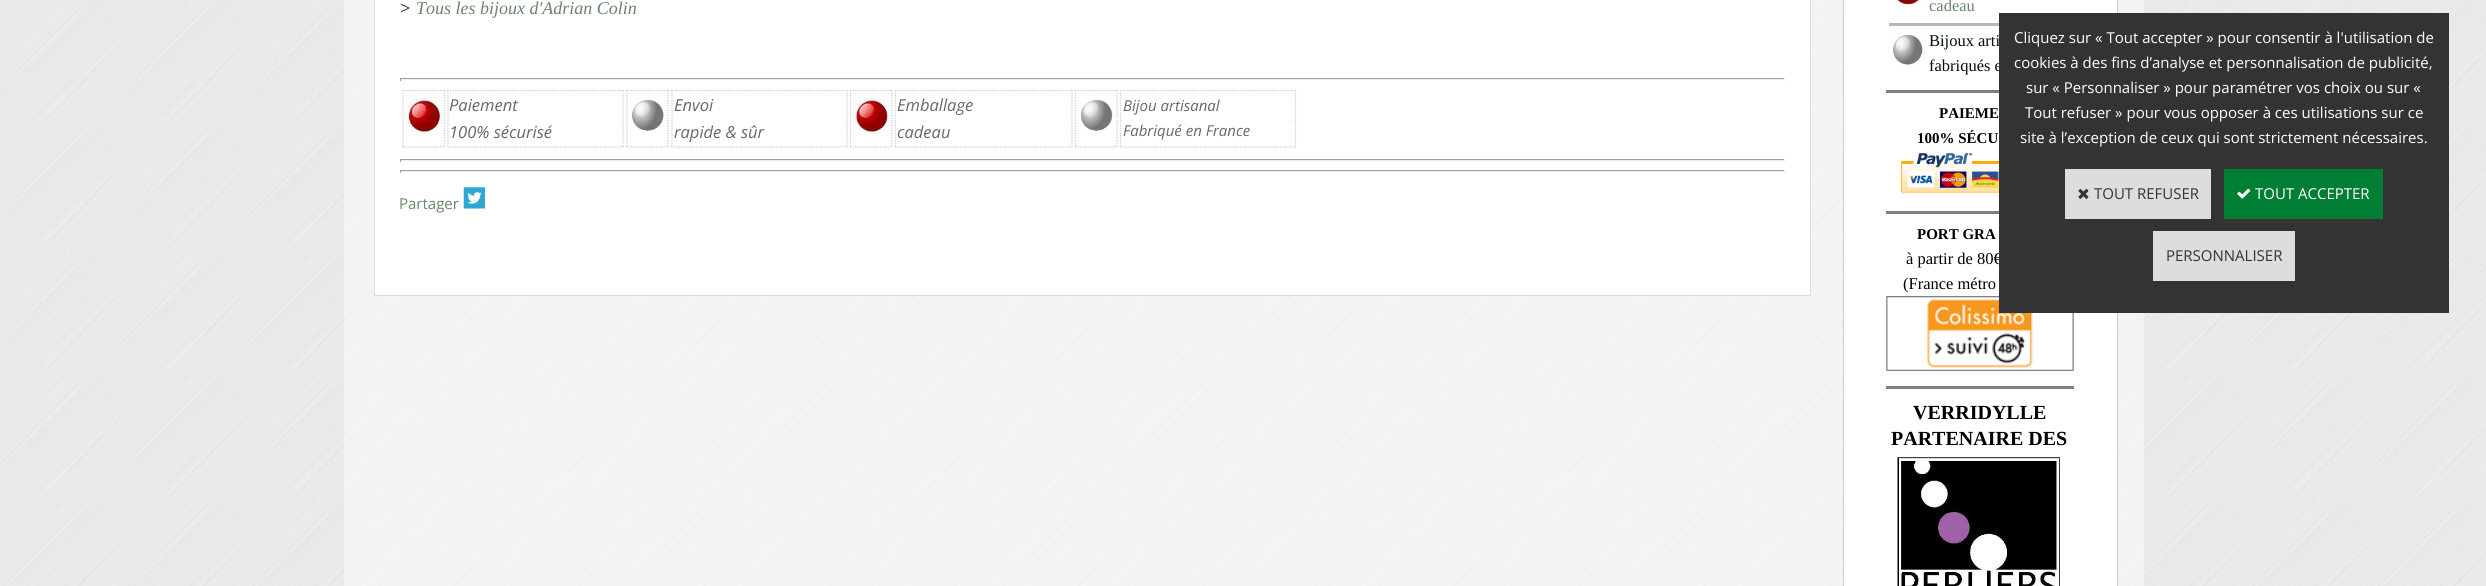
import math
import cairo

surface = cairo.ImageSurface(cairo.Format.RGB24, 2486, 586)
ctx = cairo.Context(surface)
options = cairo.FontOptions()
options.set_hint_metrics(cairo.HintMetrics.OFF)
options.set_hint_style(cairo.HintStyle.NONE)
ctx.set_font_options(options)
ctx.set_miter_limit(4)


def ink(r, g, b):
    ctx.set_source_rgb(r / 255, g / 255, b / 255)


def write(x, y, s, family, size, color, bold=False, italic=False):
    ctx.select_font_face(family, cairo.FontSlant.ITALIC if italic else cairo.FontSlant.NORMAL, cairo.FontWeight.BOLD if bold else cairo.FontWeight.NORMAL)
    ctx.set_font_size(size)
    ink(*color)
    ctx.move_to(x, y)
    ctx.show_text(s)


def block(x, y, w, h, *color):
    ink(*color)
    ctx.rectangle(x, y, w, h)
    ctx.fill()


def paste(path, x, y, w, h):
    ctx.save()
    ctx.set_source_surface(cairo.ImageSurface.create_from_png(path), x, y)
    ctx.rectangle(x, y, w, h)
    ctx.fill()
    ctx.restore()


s1 = dict(family="Liberation Serif", size=18, color=(0, 0, 0), italic=True)
s2 = dict(family="Liberation Serif", size=18, color=(105, 133, 105), italic=True)
s3 = dict(family="Open Sans", size=16.5, color=(103, 103, 103), italic=True)
s4 = dict(family="Open Sans", size=15, color=(103, 103, 103), italic=True)
s5 = dict(family="Open Sans", size=15, color=(105, 133, 105))
s6 = dict(family="Liberation Serif", size=16.5, color=(105, 133, 105))
s7 = dict(family="Liberation Serif", size=16.5, color=(0, 16, 0))
s8 = dict(family="Liberation Serif", size=15, color=(0, 0, 0), bold=True)
s9 = dict(family="Liberation Serif", size=16.5, color=(0, 0, 0))
s10 = dict(family="Liberation Serif", size=20, color=(0, 0, 0), bold=True)
s11 = dict(family="Open Sans", size=15, color=(255, 255, 255))
s12 = dict(family="Open Sans", size=15, color=(51, 51, 51))

ink(255, 255, 255)
ctx.paint()
paste("pic1.png", 0, 0, 2486, 586)
ctx.set_source_rgba(1, 1, 1, 0.45)
ctx.rectangle(344, 0, 1800, 586)
ctx.fill()
ink(255, 255, 255)
ctx.rectangle(374.5, -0.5, 1436, 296)
ctx.fill_preserve()
ink(221, 221, 221)
ctx.set_line_width(1)
ctx.stroke()
write(399, 14, ">", **s1)
write(416, 14, "Tous les bijoux d'Adrian Colin", **s2)
block(400, 78, 1385, 1, 159, 159, 159)
block(1784, 78, 1, 3, 238, 238, 238)
block(400, 79, 1385, 1, 238, 238, 238)
block(400, 78, 1, 3, 159, 159, 159)
ctx.new_path()
ctx.move_to(402.5, 90.5)
ctx.line_to(445, 90.5)
ctx.move_to(444.5, 90)
ctx.line_to(444.5, 147.5)
ctx.move_to(402.5, 147)
ctx.line_to(445, 147)
ctx.move_to(403, 90)
ctx.line_to(403, 147.5)
ink(204, 204, 204)
ctx.set_line_width(1.2)
ctx.set_dash([1.25, 1.25])
ctx.stroke()
paste("pic2.png", 405, 97, 38, 37)
ctx.new_path()
ctx.move_to(447.5, 90.5)
ctx.line_to(624, 90.5)
ctx.stroke()
ctx.new_path()
ctx.move_to(623, 90)
ctx.line_to(623, 147.5)
ctx.stroke()
ctx.new_path()
ctx.move_to(447.5, 147)
ctx.line_to(624, 147)
ctx.stroke()
ctx.new_path()
ctx.move_to(448, 90)
ctx.line_to(448, 147.5)
ctx.stroke()
write(449, 111, "Paiement", **s3)
write(449, 138, "100% sécurisé", **s3)
ctx.new_path()
ctx.move_to(626, 90.5)
ctx.line_to(669, 90.5)
ctx.move_to(668, 90)
ctx.line_to(668, 147.5)
ctx.move_to(626, 147)
ctx.line_to(669, 147)
ctx.move_to(627, 90)
ctx.line_to(627, 147.5)
ink(204, 204, 204)
ctx.stroke()
paste("pic3.png", 630, 98, 34, 35)
ctx.new_path()
ctx.move_to(671, 90.5)
ctx.line_to(847.5, 90.5)
ctx.stroke()
ctx.new_path()
ctx.move_to(847, 90)
ctx.line_to(847, 147.5)
ctx.stroke()
ctx.new_path()
ctx.move_to(671, 147)
ctx.line_to(847.5, 147)
ctx.stroke()
ctx.new_path()
ctx.move_to(672, 90)
ctx.line_to(672, 147.5)
ctx.stroke()
write(674, 111, "Envoi", **s3)
write(674, 138, "rapide & sûr", **s3)
ctx.new_path()
ctx.move_to(850, 90.5)
ctx.line_to(892.5, 90.5)
ctx.move_to(892, 90)
ctx.line_to(892, 147.5)
ctx.move_to(850, 147)
ctx.line_to(892.5, 147)
ctx.move_to(850.5, 90)
ctx.line_to(850.5, 147.5)
ink(204, 204, 204)
ctx.stroke()
paste("pic4.png", 852, 97, 38, 37)
ctx.new_path()
ctx.move_to(895, 90.5)
ctx.line_to(1072.5, 90.5)
ctx.stroke()
ctx.new_path()
ctx.move_to(1072, 90)
ctx.line_to(1072, 147.5)
ctx.stroke()
ctx.new_path()
ctx.move_to(895, 147)
ctx.line_to(1072.5, 147)
ctx.stroke()
ctx.new_path()
ctx.move_to(895.5, 90)
ctx.line_to(895.5, 147.5)
ctx.stroke()
write(897, 111, "Emballage", **s3)
write(897, 138, "cadeau", **s3)
ctx.new_path()
ctx.move_to(1075, 90.5)
ctx.line_to(1117.5, 90.5)
ctx.move_to(1117, 90)
ctx.line_to(1117, 147.5)
ctx.move_to(1075, 147)
ctx.line_to(1117.5, 147)
ctx.move_to(1075.5, 90)
ctx.line_to(1075.5, 147.5)
ink(204, 204, 204)
ctx.stroke()
paste("pic5.png", 1080, 98, 35, 35)
ctx.new_path()
ctx.move_to(1120, 90.5)
ctx.line_to(1296, 90.5)
ctx.stroke()
ctx.new_path()
ctx.move_to(1295.5, 90)
ctx.line_to(1295.5, 147.5)
ctx.stroke()
ctx.new_path()
ctx.move_to(1120, 147)
ctx.line_to(1296, 147)
ctx.stroke()
ctx.new_path()
ctx.move_to(1120.5, 90)
ctx.line_to(1120.5, 147.5)
ctx.stroke()
write(1123, 111, "Bijou artisanal", **s4)
write(1123, 136, "Fabriqué en France", **s4)
block(400, 159, 1385, 1, 159, 159, 159)
block(1784, 159, 1, 3, 238, 238, 238)
block(400, 160, 1385, 1, 238, 238, 238)
block(400, 159, 1, 3, 159, 159, 159)
block(400, 170, 1385, 1, 159, 159, 159)
block(1784, 170, 1, 3, 238, 238, 238)
block(400, 171, 1385, 1, 238, 238, 238)
block(400, 170, 1, 3, 159, 159, 159)
write(399, 209, "Partager", **s5)
paste("pic6.png", 463, 187, 22, 22)
ink(255, 255, 255)
ctx.rectangle(1843.5, -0.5, 274, 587)
ctx.fill_preserve()
ink(204, 204, 204)
ctx.set_line_width(1)
ctx.set_dash([])
ctx.stroke()
paste("pic7.png", 1890, 0, 35, 6)
write(1929, 11, "cadeau", **s6)
block(1889, 23, 110, 3, 184, 184, 184)
paste("pic8.png", 1891, 33, 34, 34)
write(1929, 46, "Bijoux arti", **s7)
write(1929, 71, "fabriqués e", **s7)
block(1886, 90, 113, 3, 128, 128, 128)
write(1939, 118, "PAIEME", **s8)
write(1917, 143, "100% SÉCU", **s8)
paste("pic9.png", 1901, 153, 98, 40)
block(1886, 211, 113, 3, 128, 128, 128)
write(1917, 239, "PORT GRA", **s8)
write(1906, 264, "à partir de 80€", **s9)
write(1903, 289, "(France métro", **s9)
paste("pic10.png", 1886, 296, 188, 75)
block(1886, 386, 188, 3, 128, 128, 128)
write(1913, 419, "VERRIDYLLE", **s10)
write(1891, 445, "PARTENAIRE DES", **s10)
paste("pic11.png", 1897, 457, 163, 129)
block(1999, 13, 450, 300, 51, 51, 51)
write(2014, 43, "Cliquez sur « Tout accepter » pour consentir à l'utilisation de", **s11)
write(2014, 68, "cookies à des fins d’analyse et personnalisation de publicité,", **s11)
write(2026, 93, "sur « Personnaliser » pour paramétrer vos choix ou sur «", **s11)
write(2025, 118, "Tout refuser » pour vous opposer à ces utilisations sur ce", **s11)
write(2020, 143, "site à l’exception de ceux qui sont strictement nécessaires.", **s11)
block(2065, 169, 146, 50, 221, 221, 221)
paste("pic12.png", 2078, 189, 11, 10)
write(2094, 199, "TOUT REFUSER", **s12)
block(2224, 169, 159, 50, 0, 126, 51)
paste("pic13.png", 2237, 188, 14, 11)
write(2255, 199, "TOUT ACCEPTER", **s11)
block(2153, 231, 142, 50, 221, 221, 221)
write(2166, 261, "PERSONNALISER", **s12)
surface.write_to_png("screenshot.png")
